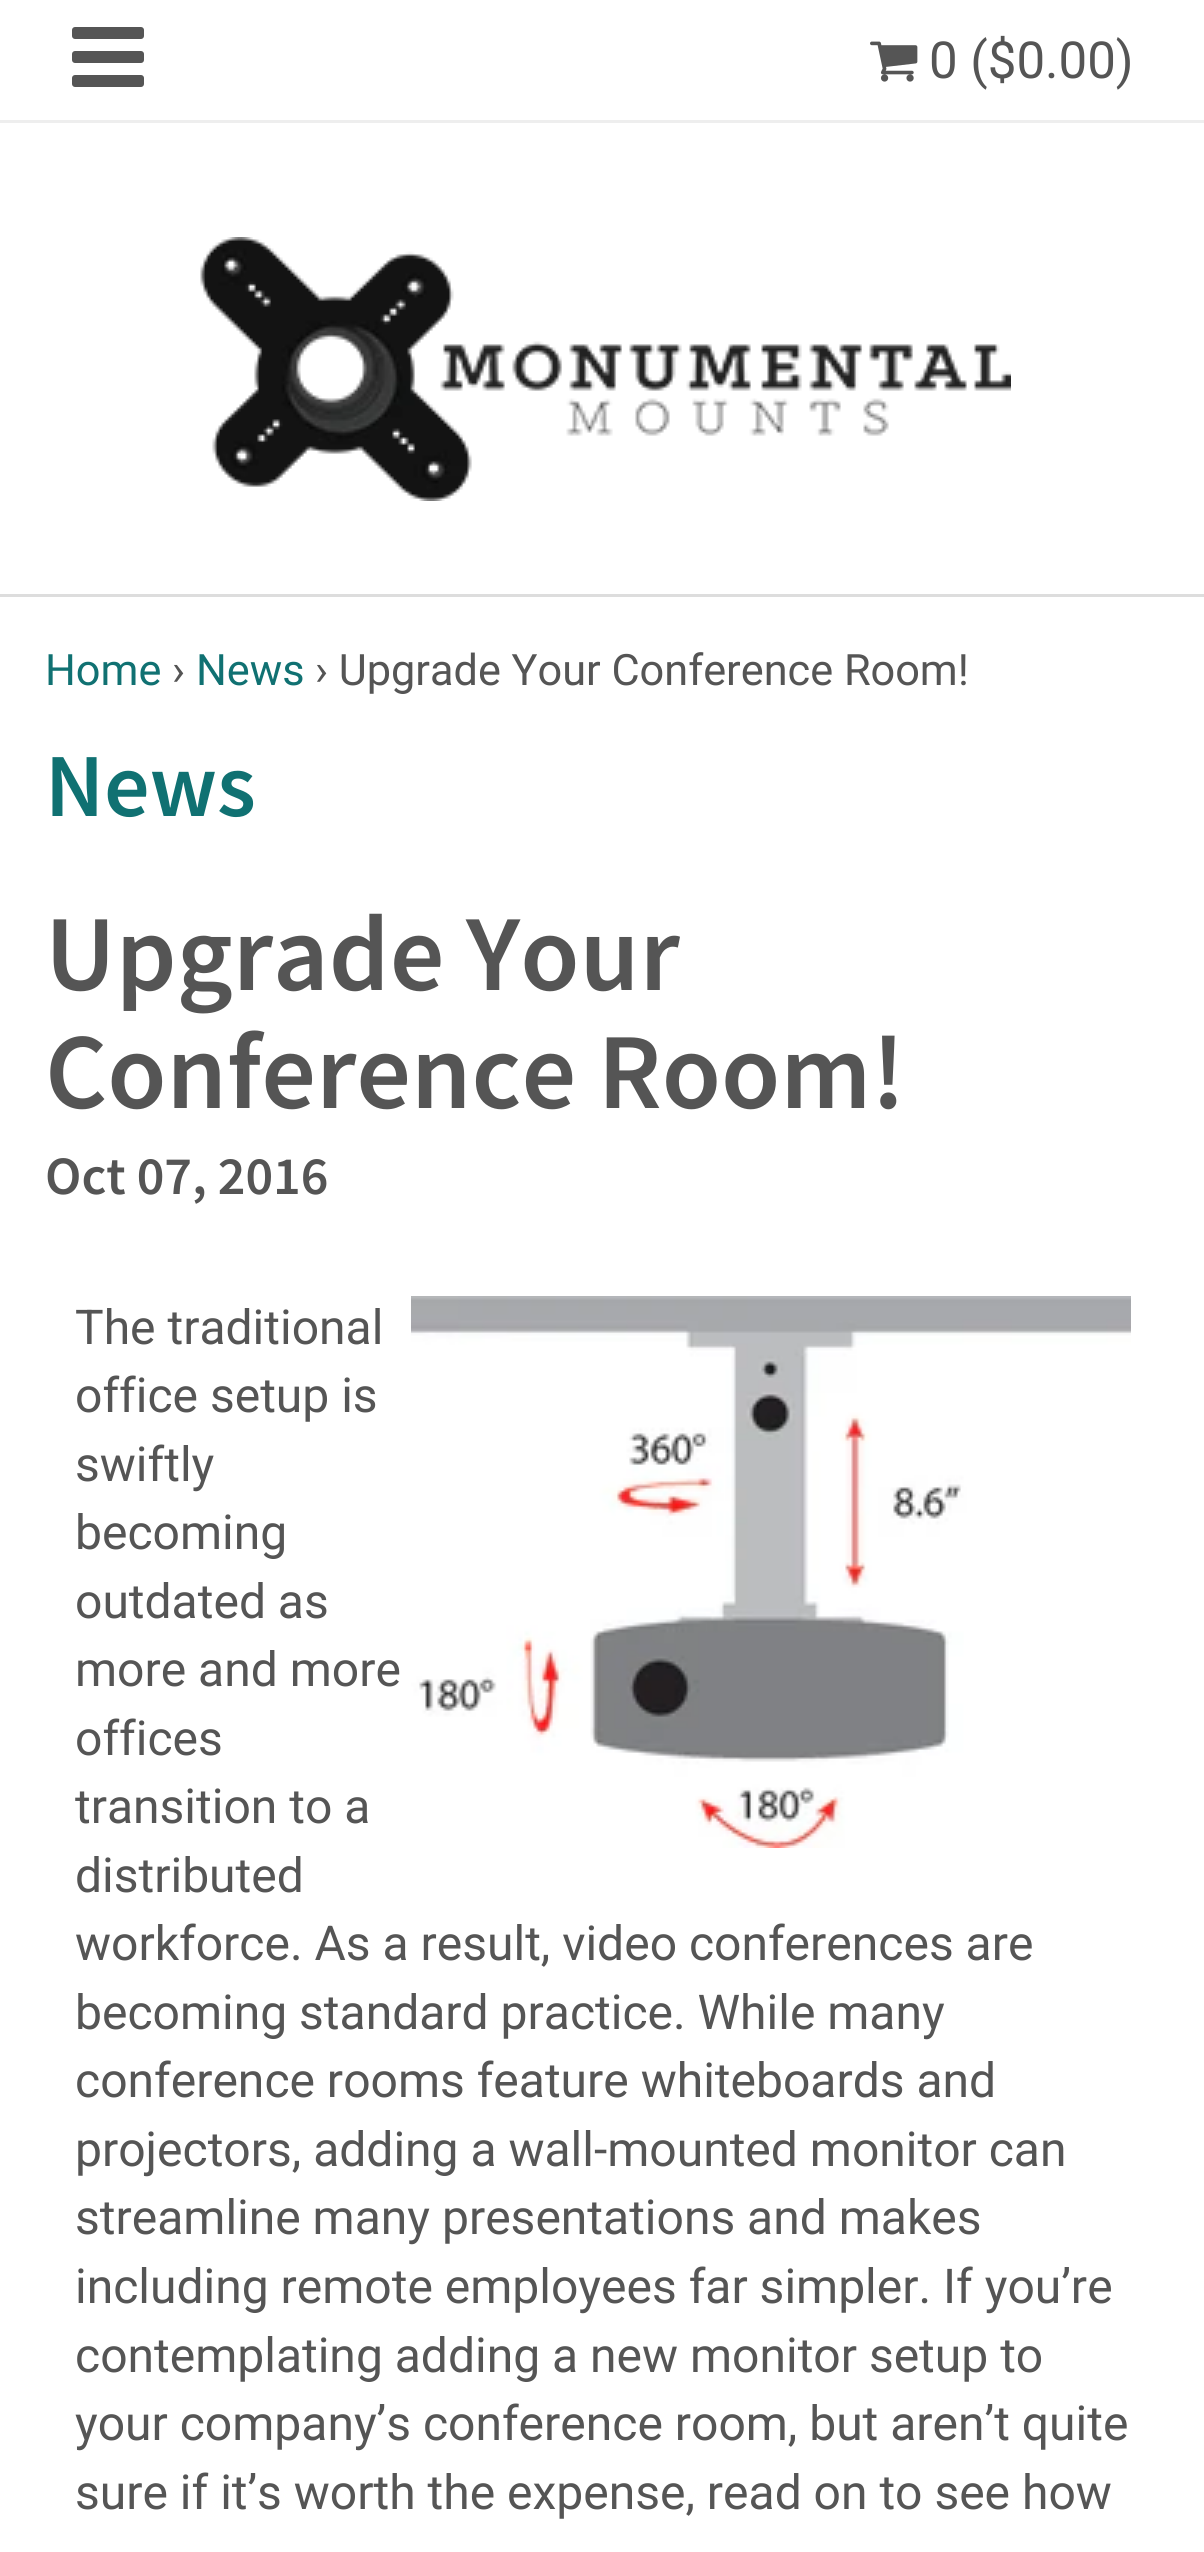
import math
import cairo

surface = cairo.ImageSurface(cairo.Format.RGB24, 1204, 2552)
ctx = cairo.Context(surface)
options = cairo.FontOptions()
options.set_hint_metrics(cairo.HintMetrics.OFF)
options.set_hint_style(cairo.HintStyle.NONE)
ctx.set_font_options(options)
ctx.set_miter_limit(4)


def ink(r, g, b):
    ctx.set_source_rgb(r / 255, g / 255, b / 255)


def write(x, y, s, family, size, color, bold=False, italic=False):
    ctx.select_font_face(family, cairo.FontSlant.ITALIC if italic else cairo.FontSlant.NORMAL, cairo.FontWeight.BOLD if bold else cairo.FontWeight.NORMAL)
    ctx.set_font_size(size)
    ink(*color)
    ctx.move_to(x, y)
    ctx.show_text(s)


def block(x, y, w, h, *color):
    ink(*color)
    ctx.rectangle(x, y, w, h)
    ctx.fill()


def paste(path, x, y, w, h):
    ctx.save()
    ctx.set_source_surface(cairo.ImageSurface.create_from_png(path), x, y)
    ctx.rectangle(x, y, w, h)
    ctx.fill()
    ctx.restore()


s1 = dict(family="Roboto", size=51, color=(85, 85, 85))
s2 = dict(family="Roboto", size=43.25, color=(16, 113, 114))
s3 = dict(family="Roboto", size=43.25, color=(85, 85, 85))
s4 = dict(family="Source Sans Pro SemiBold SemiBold", size=90, color=(16, 113, 114))
s5 = dict(family="Source Sans Pro SemiBold SemiBold", size=108, color=(85, 85, 85))
s6 = dict(family="Source Sans Pro SemiBold SemiBold", size=54, color=(85, 85, 85))
s7 = dict(family="Roboto", size=48, color=(85, 85, 85))

ink(255, 255, 255)
ctx.paint()
block(0, 594, 1204, 3, 221, 221, 221)
block(0, 120, 1204, 3, 238, 238, 238)
paste("pic1.png", 72, 27, 72, 60)
paste("pic2.png", 870, 41, 48, 41)
write(929, 78, "0 ($0.00)", **s1)
paste("pic3.png", 200, 237, 811, 264)
write(45, 685, "Home", **s2)
write(172, 685, "›", **s3)
write(196, 685, "News", **s2)
write(315, 685, "› Upgrade Your Conference Room!", **s3)
write(45, 816, "News", **s4)
write(45, 990, "Upgrade Your", **s5)
write(45, 1108, "Conference Room!", **s5)
write(45, 1194, "Oct 07, 2016", **s6)
write(75, 1344, "The traditional", **s7)
paste("pic4.png", 411, 1296, 720, 552)
write(75, 1412, "office setup is", **s7)
write(75, 1481, "swiftly", **s7)
write(75, 1549, "becoming", **s7)
write(75, 1618, "outdated as", **s7)
write(75, 1686, "more and more", **s7)
write(75, 1755, "offices", **s7)
write(75, 1823, "transition to a", **s7)
write(75, 1892, "distributed", **s7)
write(75, 1960, "workforce. As a result, video conferences are", **s7)
write(75, 2029, "becoming standard practice. While many", **s7)
write(75, 2097, "conference rooms feature whiteboards and", **s7)
write(75, 2166, "projectors, adding a wall-mounted monitor can", **s7)
write(75, 2234, "streamline many presentations and makes", **s7)
write(75, 2303, "including remote employees far simpler. If you’re", **s7)
write(75, 2372, "contemplating adding a new monitor setup to", **s7)
write(75, 2440, "your company’s conference room, but aren’t quite", **s7)
write(75, 2509, "sure if it’s worth the expense, read on to see how", **s7)
surface.write_to_png("screenshot.png")
